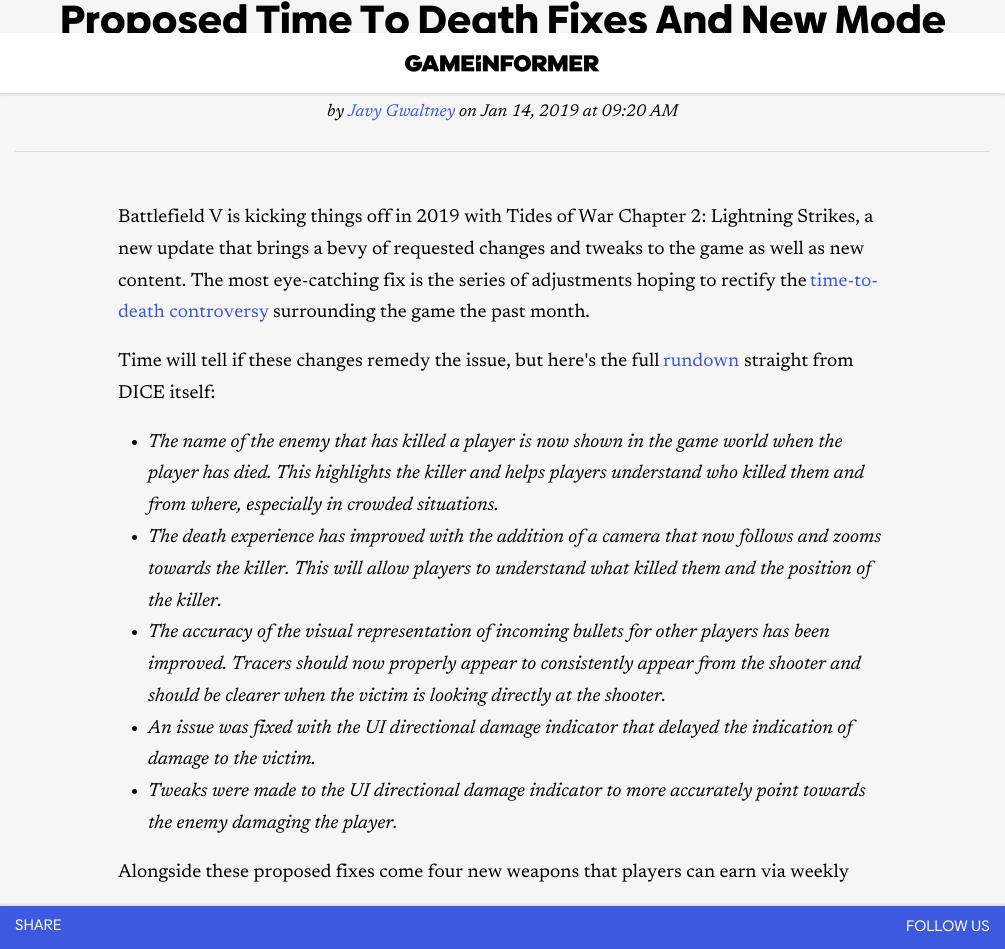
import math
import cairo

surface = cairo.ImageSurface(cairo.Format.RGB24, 1005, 949)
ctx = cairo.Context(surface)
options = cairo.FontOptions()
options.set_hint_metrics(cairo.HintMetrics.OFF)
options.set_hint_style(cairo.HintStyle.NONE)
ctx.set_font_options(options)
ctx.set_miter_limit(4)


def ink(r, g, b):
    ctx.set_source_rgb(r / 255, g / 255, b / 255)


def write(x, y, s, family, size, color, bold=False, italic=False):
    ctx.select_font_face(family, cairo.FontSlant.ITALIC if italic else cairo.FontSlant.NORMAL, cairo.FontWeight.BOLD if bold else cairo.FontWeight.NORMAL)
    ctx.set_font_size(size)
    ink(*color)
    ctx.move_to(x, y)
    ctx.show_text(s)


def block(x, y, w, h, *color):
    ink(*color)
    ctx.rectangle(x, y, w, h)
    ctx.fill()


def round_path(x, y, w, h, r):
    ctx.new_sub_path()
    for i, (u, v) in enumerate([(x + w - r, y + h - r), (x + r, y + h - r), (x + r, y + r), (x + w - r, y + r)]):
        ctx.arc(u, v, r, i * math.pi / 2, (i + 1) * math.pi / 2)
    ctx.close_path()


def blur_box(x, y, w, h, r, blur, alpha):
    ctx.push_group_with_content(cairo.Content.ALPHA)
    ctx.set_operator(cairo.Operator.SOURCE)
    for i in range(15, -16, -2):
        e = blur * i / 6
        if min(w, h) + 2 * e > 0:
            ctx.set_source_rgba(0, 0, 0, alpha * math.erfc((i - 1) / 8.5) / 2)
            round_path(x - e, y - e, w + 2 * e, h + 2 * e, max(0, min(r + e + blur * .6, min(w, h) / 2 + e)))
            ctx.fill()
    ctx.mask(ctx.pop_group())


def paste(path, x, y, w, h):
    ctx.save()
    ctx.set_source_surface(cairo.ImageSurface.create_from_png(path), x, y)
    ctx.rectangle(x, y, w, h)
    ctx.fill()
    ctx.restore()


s1 = dict(family="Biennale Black", size=40.8, color=(0, 0, 0))
s2 = dict(family="Newsreader", size=17, color=(0, 0, 0), italic=True)
s3 = dict(family="Newsreader", size=17, color=(60, 89, 224), italic=True)
s4 = dict(family="Newsreader", size=18.7, color=(0, 0, 0))
s5 = dict(family="Newsreader", size=18.7, color=(60, 89, 224))
s6 = dict(family="Newsreader", size=18.7, color=(0, 0, 0), italic=True)
s7 = dict(family="Biennale", size=15.25, color=(255, 255, 255))

ink(246, 246, 246)
ctx.paint()
write(60, 34, "Proposed Time To Death Fixes And New Mode", **s1)
block(15, 151, 975, 1, 219, 219, 219)
write(327, 116, "by", **s2)
write(348, 116, "Javy Gwaltney", **s3)
write(459, 116, "on Jan 14, 2019 at 09:20 AM", **s2)
write(118, 222, "Battlefield V is kicking things off in 2019 with Tides of War Chapter 2: Lightning Strikes, a", **s4)
write(118, 254, "new update that brings a bevy of requested changes and tweaks to the game as well as new", **s4)
write(118, 286, "content. The most eye-catching fix is the series of adjustments hoping to rectify the", **s4)
write(810, 286, "time-to-", **s5)
write(118, 317, "death controversy", **s5)
write(273, 317, "surrounding the game the past month.", **s4)
write(118, 366, "Time will tell if these changes remedy the issue, but here's the full", **s4)
write(663, 366, "rundown", **s5)
write(744, 366, "straight from", **s4)
write(118, 398, "DICE itself:", **s4)
ctx.new_path()
ctx.arc(134.5, 442.5, 2.5, 0, 2 * math.pi)
ctx.fill()
write(148, 447, "The name of the enemy that has killed a player is now shown in the game world when the", **s6)
write(148, 478, "player has died. This highlights the killer and helps players understand who killed them and", **s6)
write(148, 510, "from where, especially in crowded situations.", **s6)
ctx.new_path()
ctx.arc(134.5, 537.5, 2.5, 0, 2 * math.pi)
ctx.fill()
write(148, 542, "The death experience has improved with the addition of a camera that now follows and zooms", **s6)
write(148, 574, "towards the killer. This will allow players to understand what killed them and the position of", **s6)
write(148, 606, "the killer.", **s6)
ctx.new_path()
ctx.arc(134.5, 632.5, 2.5, 0, 2 * math.pi)
ctx.fill()
write(148, 637, "The accuracy of the visual representation of incoming bullets for other players has been", **s6)
write(148, 669, "improved. Tracers should now properly appear to consistently appear from the shooter and", **s6)
write(148, 701, "should be clearer when the victim is looking directly at the shooter.", **s6)
ctx.new_path()
ctx.arc(134.5, 728.5, 2.5, 0, 2 * math.pi)
ctx.fill()
write(148, 733, "An issue was fixed with the UI directional damage indicator that delayed the indication of", **s6)
write(148, 764, "damage to the victim.", **s6)
ctx.new_path()
ctx.arc(134.5, 791.5, 2.5, 0, 2 * math.pi)
ctx.fill()
write(148, 796, "Tweaks were made to the UI directional damage indicator to more accurately point towards", **s6)
write(148, 828, "the enemy damaging the player.", **s6)
write(118, 877, "Alongside these proposed fixes come four new weapons that players can earn via weekly", **s4)
ink(0, 0, 0)
blur_box(0, 904, 1005, 43, 0, 1, 0.1)
block(0, 906, 1005, 43, 60, 89, 224)
write(15, 930, "SHARE", **s7)
write(906, 931, "FOLLOW US", **s7)
ink(0, 0, 0)
blur_box(0, 35, 1005, 60, 0, 1, 0.1)
block(0, 33, 1005, 60, 255, 255, 255)
paste("pic1.png", 405, 55, 195, 17)
surface.write_to_png("screenshot.png")
